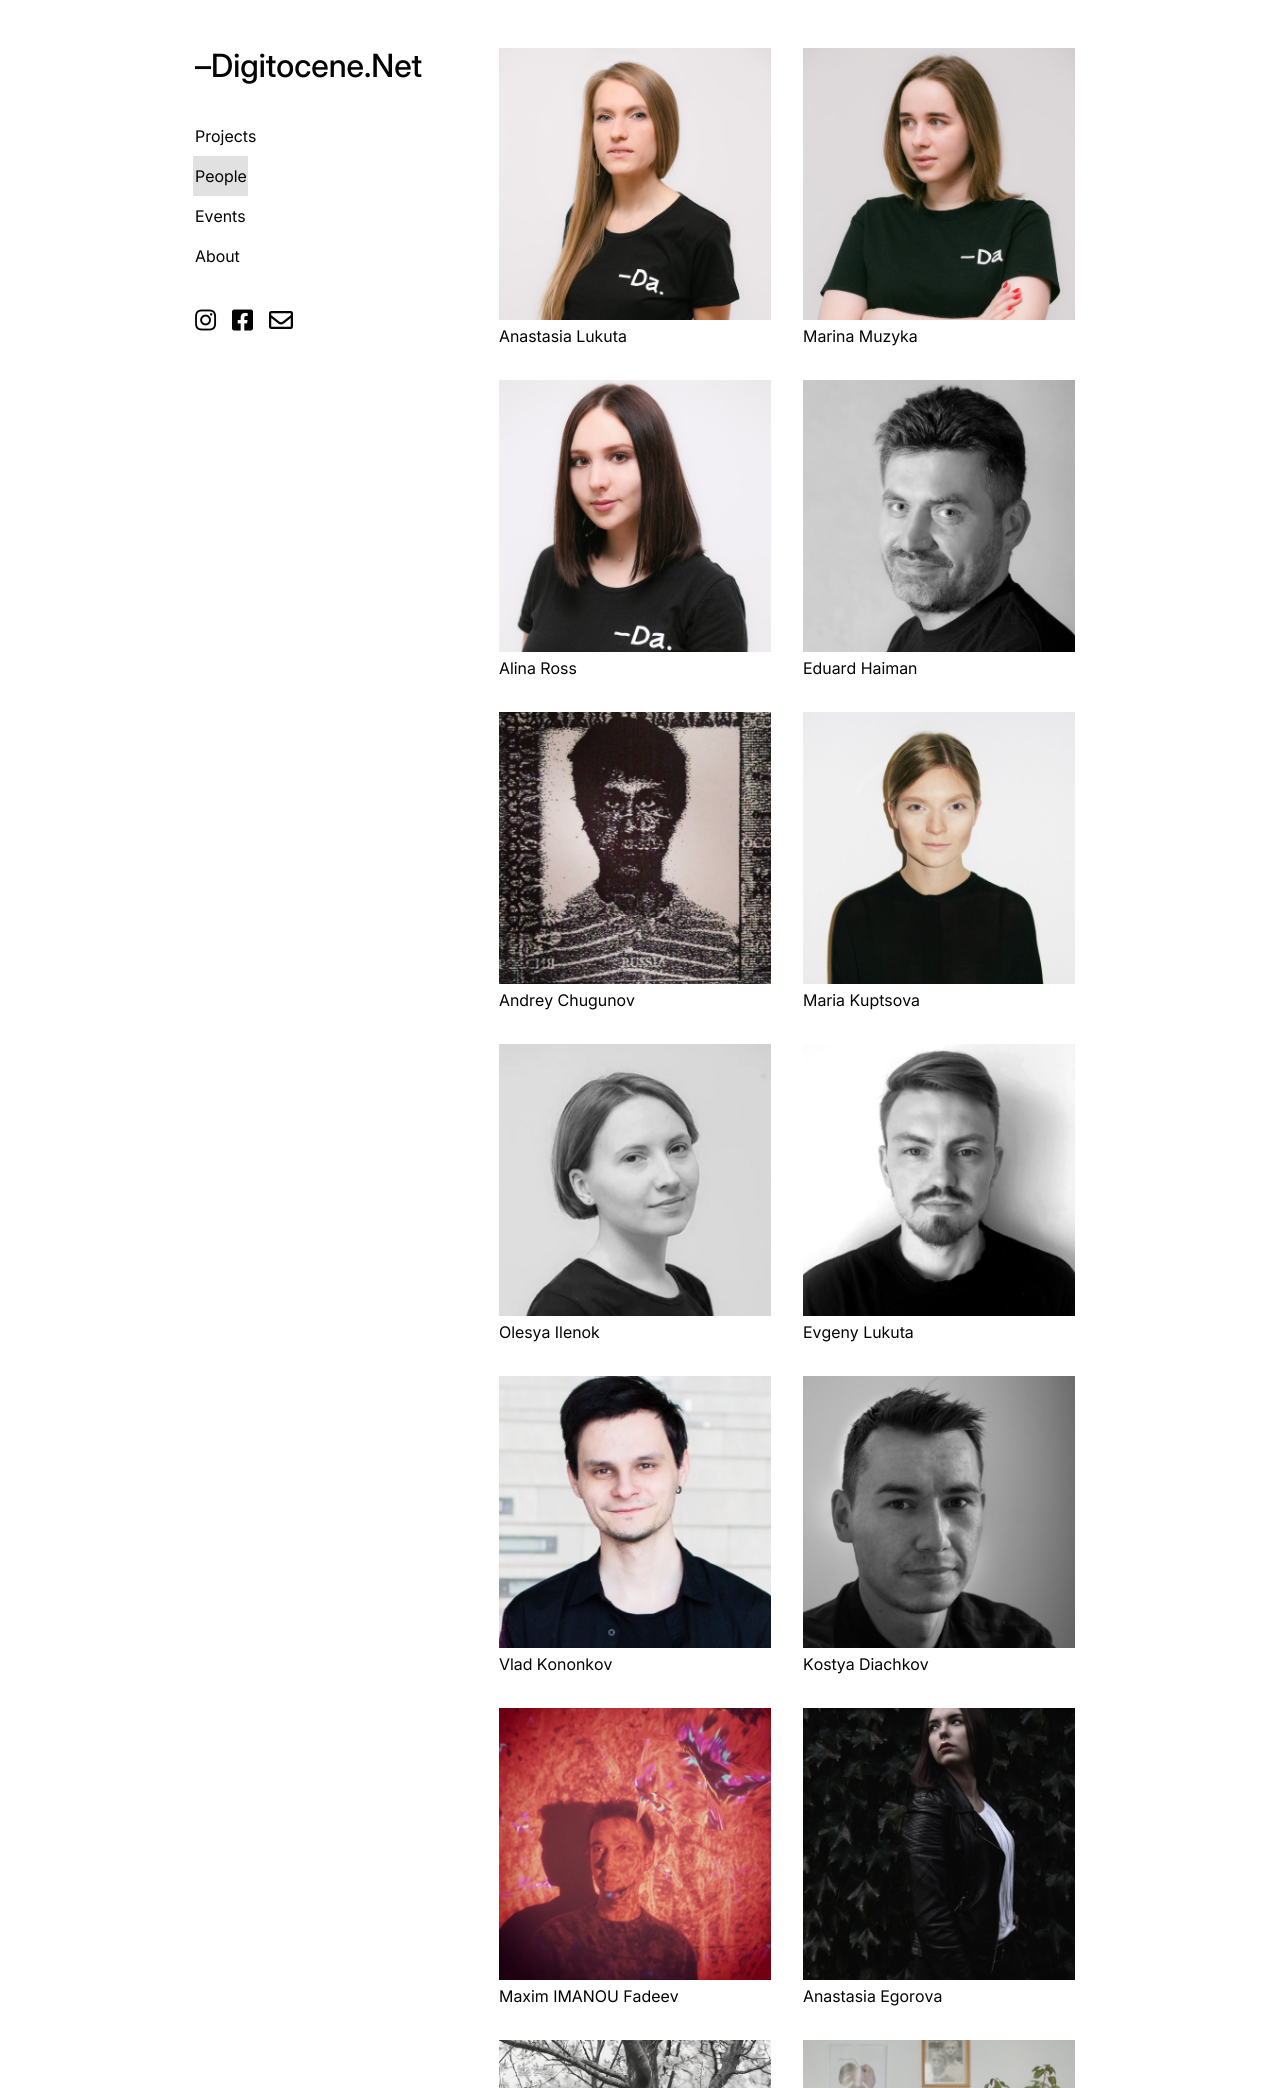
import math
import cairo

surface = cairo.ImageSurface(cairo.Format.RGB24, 1269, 2088)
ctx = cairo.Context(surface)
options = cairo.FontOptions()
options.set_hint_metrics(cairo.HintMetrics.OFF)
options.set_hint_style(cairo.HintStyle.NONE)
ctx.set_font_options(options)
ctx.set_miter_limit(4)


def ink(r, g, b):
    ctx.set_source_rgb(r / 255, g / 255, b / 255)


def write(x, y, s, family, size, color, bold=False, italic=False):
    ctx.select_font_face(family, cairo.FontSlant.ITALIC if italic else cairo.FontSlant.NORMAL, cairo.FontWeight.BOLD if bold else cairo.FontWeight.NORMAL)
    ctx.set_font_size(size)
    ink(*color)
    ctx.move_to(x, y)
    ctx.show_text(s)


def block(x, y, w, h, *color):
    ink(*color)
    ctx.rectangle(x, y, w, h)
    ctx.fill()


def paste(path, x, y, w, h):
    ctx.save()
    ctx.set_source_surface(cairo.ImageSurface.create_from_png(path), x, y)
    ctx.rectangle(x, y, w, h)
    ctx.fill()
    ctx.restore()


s1 = dict(family="Inter Medium", size=32, color=(4, 4, 4))
s2 = dict(family="Inter", size=16, color=(4, 4, 4))

ink(255, 255, 255)
ctx.paint()
write(195, 77, "–Digitocene.Net", **s1)
write(195, 142, "Projects", **s2)
block(193, 156, 55, 40, 225, 225, 225)
write(195, 182, "People", **s2)
write(195, 222, "Events", **s2)
write(195, 262, "About", **s2)
paste("pic1.png", 195, 309, 22, 22)
paste("pic2.png", 232, 309, 21, 22)
paste("pic3.png", 269, 311, 24, 18)
paste("pic4.png", 499, 48, 272, 272)
write(499, 342, "Anastasia Lukuta", **s2)
paste("pic5.png", 803, 48, 272, 272)
write(803, 342, "Marina Muzyka", **s2)
paste("pic6.png", 499, 380, 272, 272)
write(499, 674, "Alina Ross", **s2)
paste("pic7.png", 803, 380, 272, 272)
write(803, 674, "Eduard Haiman", **s2)
paste("pic8.png", 499, 712, 272, 272)
write(499, 1006, "Andrey Chugunov", **s2)
paste("pic9.png", 803, 712, 272, 272)
write(803, 1006, "Maria Kuptsova", **s2)
paste("pic10.png", 499, 1044, 272, 272)
write(499, 1338, "Olesya Ilenok", **s2)
paste("pic11.png", 803, 1044, 272, 272)
write(803, 1338, "Evgeny Lukuta", **s2)
paste("pic12.png", 499, 1376, 272, 272)
write(499, 1670, "Vlad Kononkov", **s2)
paste("pic13.png", 803, 1376, 272, 272)
write(803, 1670, "Kostya Diachkov", **s2)
paste("pic14.png", 499, 1708, 272, 272)
write(499, 2002, "Maxim IMANOU Fadeev", **s2)
paste("pic15.png", 803, 1708, 272, 272)
write(803, 2002, "Anastasia Egorova", **s2)
paste("pic16.png", 499, 2040, 272, 48)
paste("pic17.png", 803, 2040, 272, 48)
surface.write_to_png("screenshot.png")
